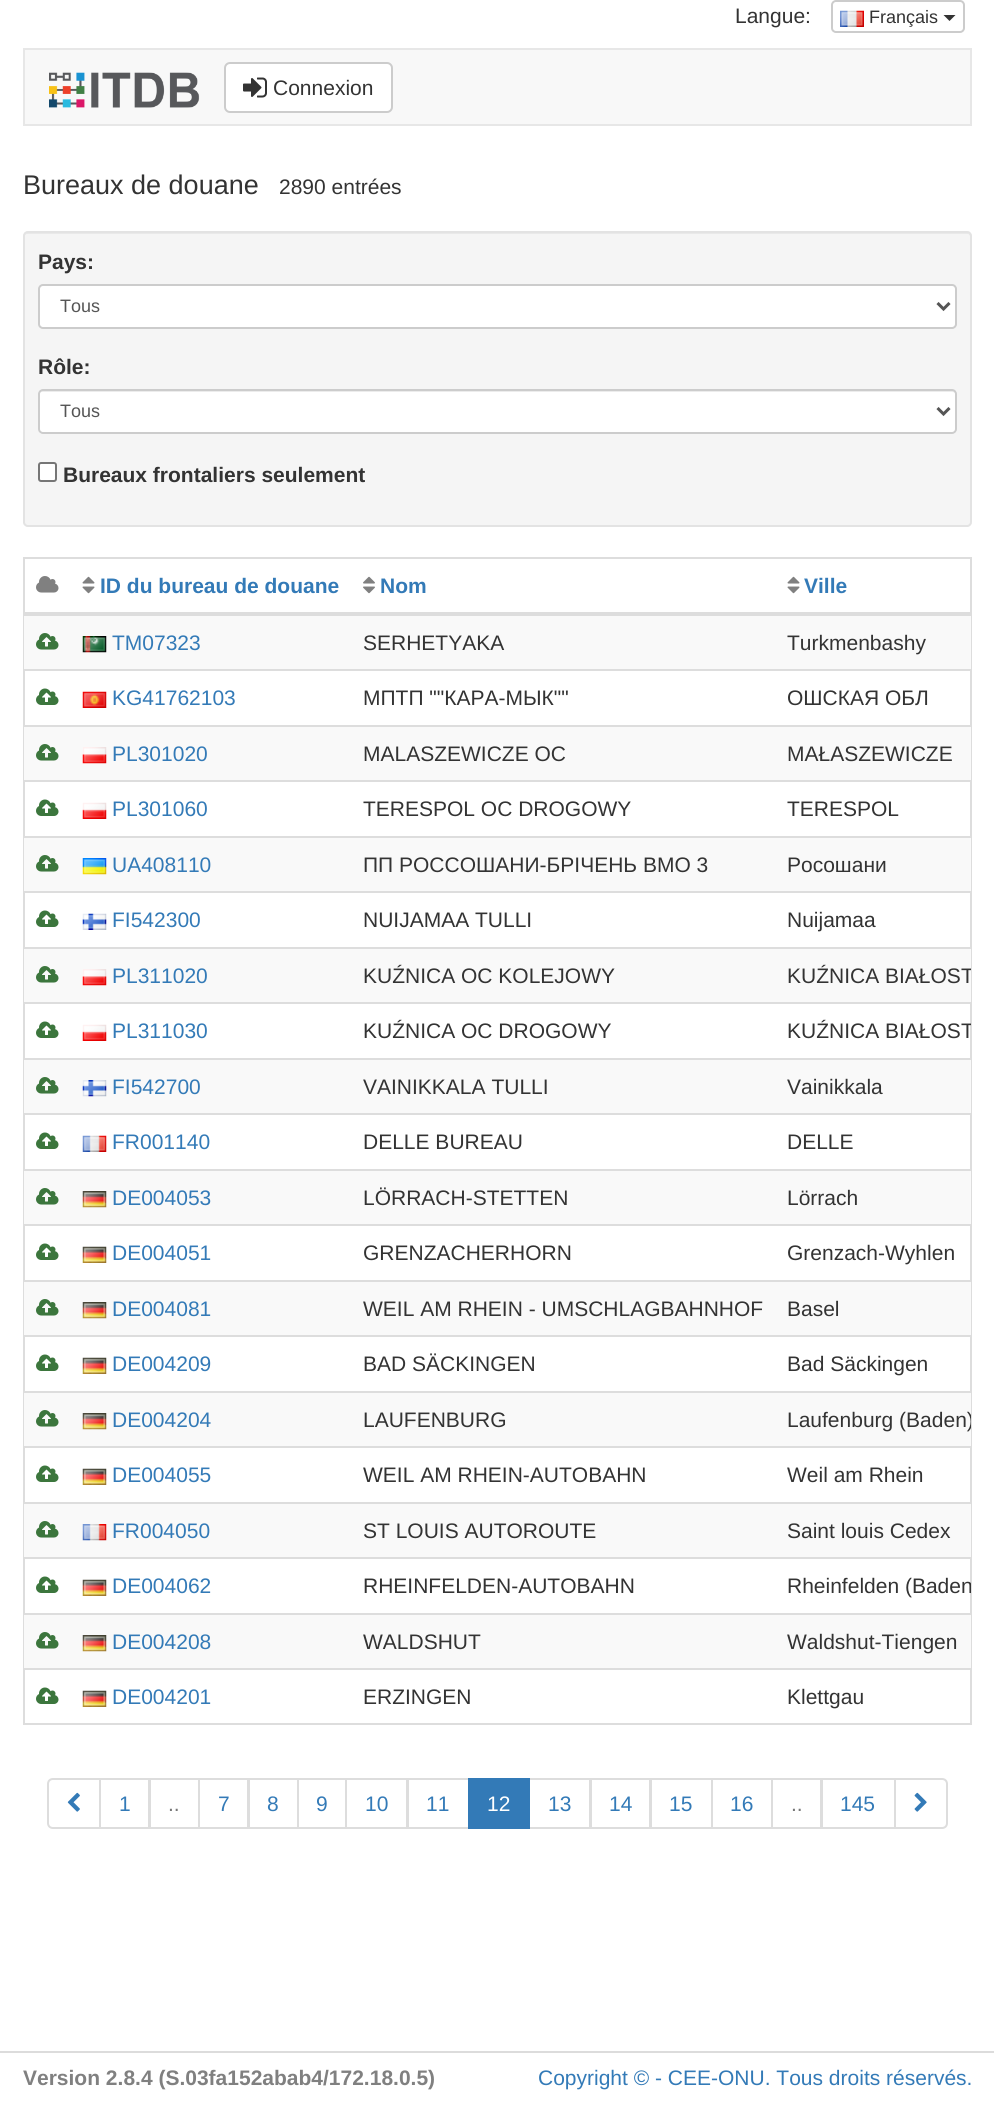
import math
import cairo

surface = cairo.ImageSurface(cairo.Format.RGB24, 994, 2107)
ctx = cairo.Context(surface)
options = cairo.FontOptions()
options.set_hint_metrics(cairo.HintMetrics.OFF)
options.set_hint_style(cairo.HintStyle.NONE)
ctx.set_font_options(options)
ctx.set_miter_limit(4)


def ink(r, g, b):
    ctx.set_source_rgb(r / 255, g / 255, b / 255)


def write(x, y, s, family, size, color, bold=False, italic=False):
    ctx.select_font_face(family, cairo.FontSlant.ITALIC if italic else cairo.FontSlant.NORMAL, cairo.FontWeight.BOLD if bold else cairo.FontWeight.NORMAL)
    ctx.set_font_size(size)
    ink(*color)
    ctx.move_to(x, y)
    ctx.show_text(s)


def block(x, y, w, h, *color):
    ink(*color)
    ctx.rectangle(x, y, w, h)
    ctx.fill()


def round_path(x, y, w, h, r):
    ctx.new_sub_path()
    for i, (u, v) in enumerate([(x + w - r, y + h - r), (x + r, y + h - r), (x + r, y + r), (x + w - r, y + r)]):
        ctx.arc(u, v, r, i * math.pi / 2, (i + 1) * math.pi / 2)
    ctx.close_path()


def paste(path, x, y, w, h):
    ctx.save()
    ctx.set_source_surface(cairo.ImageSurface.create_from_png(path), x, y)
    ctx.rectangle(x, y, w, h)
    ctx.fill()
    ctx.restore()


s1 = dict(family="Liberation Sans", size=21, color=(51, 51, 51))
s2 = dict(family="Liberation Sans", size=18, color=(51, 51, 51))
s3 = dict(family="Liberation Sans", size=27, color=(51, 51, 51))
s4 = dict(family="Liberation Sans", size=21, color=(51, 51, 51), bold=True)
s5 = dict(family="Liberation Sans", size=18, color=(85, 85, 85))
s6 = dict(family="Liberation Sans", size=21, color=(51, 122, 183), bold=True)
s7 = dict(family="Liberation Sans", size=21, color=(51, 122, 183))
s8 = dict(family="Liberation Sans", size=21, color=(119, 119, 119))
s9 = dict(family="Liberation Sans", size=21, color=(255, 255, 255))
s10 = dict(family="Liberation Sans", size=21, color=(128, 128, 128), bold=True)

ink(255, 255, 255)
ctx.paint()
write(735, 23, "Langue:", **s1)
round_path(832, 1, 132, 31, 4)
ink(204, 204, 204)
ctx.stroke()
paste("pic1.png", 840, 10, 24, 17)
write(869, 23, "Français", **s2)
ctx.new_path()
ctx.move_to(943.5, 15)
ctx.line_to(955.5, 15)
ctx.line_to(949.5, 21)
ctx.close_path()
ctx.fill()
ink(248, 248, 248)
ctx.rectangle(24, 49, 947, 76)
ctx.fill_preserve()
ink(231, 231, 231)
ctx.stroke()
paste("pic2.png", 49, 72, 151, 36)
ink(255, 255, 255)
round_path(225, 63, 167, 49, 5)
ctx.fill_preserve()
ink(204, 204, 204)
ctx.stroke()
paste("pic3.png", 243, 77, 24, 21)
write(273, 95, "Connexion", **s1)
write(23, 194, "Bureaux de douane", **s3)
write(279, 194, "2890 entrées", **s1)
ink(245, 245, 245)
round_path(23, 231, 949, 296, 5)
ctx.fill()
ink(233, 233, 233)
ctx.new_path()
ctx.move_to(27, 234)
ctx.line_to(968, 234)
ctx.curve_to(969, 234, 970, 235, 970, 237)
ctx.line_to(970, 524)
ctx.curve_to(971, 524, 971, 523, 971, 522)
ctx.line_to(971, 236)
ctx.curve_to(971, 234, 970, 233, 968, 233)
ctx.line_to(27, 233)
ctx.curve_to(25, 233, 24, 234, 24, 236)
ctx.line_to(24, 237)
ctx.curve_to(24, 235, 25, 234, 27, 234)
ctx.close_path()
ctx.fill()
round_path(24, 232, 947, 294, 4)
ink(227, 227, 227)
ctx.stroke()
write(38, 269, "Pays:", **s4)
ink(255, 255, 255)
round_path(39, 285, 917, 43, 4)
ctx.fill_preserve()
ink(204, 204, 204)
ctx.stroke()
ctx.new_path()
ctx.move_to(937.5, 303)
ctx.line_to(943.5, 309)
ctx.line_to(949.5, 303)
ink(85, 85, 85)
ctx.set_line_width(3)
ctx.stroke()
write(60, 312, "Tous", **s5)
write(38, 374, "Rôle:", **s4)
ink(255, 255, 255)
round_path(38, 389, 919, 45, 5)
ctx.fill()
ink(236, 236, 236)
ctx.new_path()
ctx.move_to(42, 392)
ctx.line_to(952, 392)
ctx.curve_to(954, 392, 956, 393, 956, 394)
ctx.curve_to(956, 392, 955, 390, 953, 390)
ctx.line_to(42, 390)
ctx.curve_to(40, 390, 39, 392, 39, 394)
ctx.curve_to(39, 393, 40, 392, 42, 392)
ctx.close_path()
ctx.fill()
round_path(39, 390, 917, 43, 4)
ink(204, 204, 204)
ctx.set_line_width(2)
ctx.stroke()
ctx.new_path()
ctx.move_to(937.5, 408)
ctx.line_to(943.5, 414)
ctx.line_to(949.5, 408)
ink(85, 85, 85)
ctx.set_line_width(3)
ctx.stroke()
write(60, 417, "Tous", **s5)
ink(255, 255, 255)
round_path(39, 463, 17, 18, 2)
ctx.fill_preserve()
ink(118, 118, 118)
ctx.set_line_width(2)
ctx.stroke()
write(63, 482, "Bureaux frontaliers seulement", **s4)
ctx.rectangle(24, 558, 947, 1166)
ink(221, 221, 221)
ctx.stroke()
paste("pic4.png", 36, 576, 23, 17)
paste("pic5.png", 82, 576, 13, 18)
write(100, 593, "ID du bureau de douane", **s6)
paste("pic6.png", 363, 576, 12, 18)
write(380, 593, "Nom", **s6)
block(24, 612, 947, 3, 221, 221, 221)
paste("pic5.png", 787, 576, 13, 18)
write(804, 593, "Ville", **s6)
block(24, 616, 947, 53, 249, 249, 249)
paste("pic7.png", 36, 633, 23, 17)
paste("pic8.png", 82, 636, 25, 17)
write(112, 650, "TM07323", **s7)
write(363, 650, "SERHETYAKA", **s1)
block(24, 615, 947, 1, 221, 221, 221)
write(787, 650, "Turkmenbashy", **s1)
paste("pic9.png", 36, 688, 23, 17)
paste("pic10.png", 82, 691, 25, 17)
write(112, 705, "KG41762103", **s7)
write(363, 705, "МПТП \"\"КАРА-МЫК\"\"", **s1)
block(24, 669, 947, 2, 221, 221, 221)
write(787, 705, "ОШСКАЯ ОБЛ", **s1)
block(24, 727, 947, 53, 249, 249, 249)
paste("pic7.png", 36, 744, 23, 17)
paste("pic11.png", 82, 747, 25, 17)
write(112, 761, "PL301020", **s7)
write(363, 761, "MALASZEWICZE OC", **s1)
block(24, 725, 947, 2, 221, 221, 221)
write(787, 761, "MAŁASZEWICZE", **s1)
paste("pic9.png", 36, 799, 23, 17)
paste("pic12.png", 82, 802, 25, 17)
write(112, 816, "PL301060", **s7)
write(363, 816, "TERESPOL OC DROGOWY", **s1)
block(24, 780, 947, 2, 221, 221, 221)
write(787, 816, "TERESPOL", **s1)
block(24, 838, 947, 53, 249, 249, 249)
paste("pic7.png", 36, 855, 23, 17)
paste("pic13.png", 82, 858, 25, 17)
write(112, 872, "UA408110", **s7)
write(363, 872, "ПП РОССОШАНИ-БРІЧЕНЬ ВМО 3", **s1)
block(24, 836, 947, 2, 221, 221, 221)
write(787, 872, "Росошани", **s1)
paste("pic9.png", 36, 910, 23, 17)
paste("pic14.png", 82, 913, 25, 17)
write(112, 927, "FI542300", **s7)
write(363, 927, "NUIJAMAA TULLI", **s1)
block(24, 891, 947, 2, 221, 221, 221)
write(787, 927, "Nuijamaa", **s1)
block(24, 949, 947, 53, 249, 249, 249)
paste("pic7.png", 36, 966, 23, 17)
paste("pic11.png", 82, 969, 25, 17)
write(112, 983, "PL311020", **s7)
write(363, 983, "KUŹNICA OC KOLEJOWY", **s1)
block(24, 947, 947, 2, 221, 221, 221)
ctx.save()
ctx.rectangle(24, 558, 947, 1166)
ctx.clip()
write(787, 983, "KUŹNICA BIAŁOST", **s1)
ctx.restore()
paste("pic9.png", 36, 1021, 23, 17)
paste("pic12.png", 82, 1024, 25, 17)
write(112, 1038, "PL311030", **s7)
write(363, 1038, "KUŹNICA OC DROGOWY", **s1)
block(24, 1002, 947, 2, 221, 221, 221)
ctx.save()
ctx.rectangle(24, 558, 947, 1166)
ctx.clip()
write(787, 1038, "KUŹNICA BIAŁOST", **s1)
ctx.restore()
block(24, 1060, 947, 53, 249, 249, 249)
paste("pic7.png", 36, 1077, 23, 17)
paste("pic15.png", 82, 1080, 25, 17)
write(112, 1094, "FI542700", **s7)
write(363, 1094, "VAINIKKALA TULLI", **s1)
block(24, 1058, 947, 2, 221, 221, 221)
write(787, 1094, "Vainikkala", **s1)
paste("pic9.png", 36, 1132, 23, 17)
paste("pic16.png", 82, 1135, 25, 17)
write(112, 1149, "FR001140", **s7)
write(363, 1149, "DELLE BUREAU", **s1)
block(24, 1113, 947, 2, 221, 221, 221)
write(787, 1149, "DELLE", **s1)
block(24, 1171, 947, 53, 249, 249, 249)
paste("pic7.png", 36, 1188, 23, 17)
paste("pic17.png", 82, 1191, 25, 17)
write(112, 1205, "DE004053", **s7)
write(363, 1205, "LÖRRACH-STETTEN", **s1)
block(24, 1169, 947, 2, 221, 221, 221)
write(787, 1205, "Lörrach", **s1)
paste("pic9.png", 36, 1243, 23, 17)
paste("pic18.png", 82, 1246, 25, 17)
write(112, 1260, "DE004051", **s7)
write(363, 1260, "GRENZACHERHORN", **s1)
block(24, 1224, 947, 2, 221, 221, 221)
write(787, 1260, "Grenzach-Wyhlen", **s1)
block(24, 1282, 947, 53, 249, 249, 249)
paste("pic7.png", 36, 1299, 23, 17)
paste("pic17.png", 82, 1302, 25, 17)
write(112, 1316, "DE004081", **s7)
write(363, 1316, "WEIL AM RHEIN - UMSCHLAGBAHNHOF", **s1)
block(24, 1280, 947, 2, 221, 221, 221)
write(787, 1316, "Basel", **s1)
paste("pic9.png", 36, 1354, 23, 17)
paste("pic18.png", 82, 1357, 25, 17)
write(112, 1371, "DE004209", **s7)
write(363, 1371, "BAD SÄCKINGEN", **s1)
block(24, 1335, 947, 2, 221, 221, 221)
write(787, 1371, "Bad Säckingen", **s1)
block(24, 1393, 947, 53, 249, 249, 249)
paste("pic7.png", 36, 1410, 23, 17)
paste("pic17.png", 82, 1413, 25, 17)
write(112, 1427, "DE004204", **s7)
write(363, 1427, "LAUFENBURG", **s1)
block(24, 1391, 947, 2, 221, 221, 221)
ctx.save()
ctx.rectangle(24, 558, 947, 1166)
ctx.clip()
write(787, 1427, "Laufenburg (Baden)", **s1)
ctx.restore()
paste("pic9.png", 36, 1465, 23, 17)
paste("pic18.png", 82, 1468, 25, 17)
write(112, 1482, "DE004055", **s7)
write(363, 1482, "WEIL AM RHEIN-AUTOBAHN", **s1)
block(24, 1446, 947, 2, 221, 221, 221)
write(787, 1482, "Weil am Rhein", **s1)
block(24, 1504, 947, 53, 249, 249, 249)
paste("pic7.png", 36, 1521, 23, 17)
paste("pic19.png", 82, 1524, 25, 17)
write(112, 1538, "FR004050", **s7)
write(363, 1538, "ST LOUIS AUTOROUTE", **s1)
block(24, 1502, 947, 2, 221, 221, 221)
write(787, 1538, "Saint louis Cedex", **s1)
paste("pic9.png", 36, 1576, 23, 17)
paste("pic18.png", 82, 1579, 25, 17)
write(112, 1593, "DE004062", **s7)
write(363, 1593, "RHEINFELDEN-AUTOBAHN", **s1)
block(24, 1557, 947, 2, 221, 221, 221)
ctx.save()
ctx.rectangle(24, 558, 947, 1166)
ctx.clip()
write(787, 1593, "Rheinfelden (Baden", **s1)
ctx.restore()
block(24, 1615, 947, 53, 249, 249, 249)
paste("pic7.png", 36, 1632, 23, 17)
paste("pic17.png", 82, 1635, 25, 17)
write(112, 1649, "DE004208", **s7)
write(363, 1649, "WALDSHUT", **s1)
block(24, 1613, 947, 2, 221, 221, 221)
write(787, 1649, "Waldshut-Tiengen", **s1)
paste("pic9.png", 36, 1687, 23, 17)
paste("pic18.png", 82, 1690, 25, 17)
write(112, 1704, "DE004201", **s7)
write(363, 1704, "ERZINGEN", **s1)
block(24, 1668, 947, 2, 221, 221, 221)
write(787, 1704, "Klettgau", **s1)
ctx.new_path()
ctx.move_to(53, 1779)
ctx.line_to(100, 1779)
ctx.line_to(100, 1828)
ctx.line_to(53, 1828)
ctx.curve_to(50, 1828, 48, 1826, 48, 1823)
ctx.line_to(48, 1784)
ctx.curve_to(48, 1781, 50, 1779, 53, 1779)
ctx.close_path()
ink(221, 221, 221)
ctx.stroke()
paste("pic20.png", 67, 1792, 13, 20)
ctx.rectangle(100, 1779, 49, 49)
ctx.stroke()
write(119, 1811, "1", **s7)
ctx.rectangle(150, 1779, 49, 49)
ink(221, 221, 221)
ctx.stroke()
write(168, 1811, "..", **s8)
ctx.rectangle(199, 1779, 49, 49)
ink(221, 221, 221)
ctx.stroke()
write(218, 1811, "7", **s7)
ctx.rectangle(249, 1779, 49, 49)
ink(221, 221, 221)
ctx.stroke()
write(267, 1811, "8", **s7)
ctx.rectangle(298, 1779, 48, 49)
ink(221, 221, 221)
ctx.stroke()
write(316, 1811, "9", **s7)
ctx.rectangle(346, 1779, 61, 49)
ink(221, 221, 221)
ctx.stroke()
write(365, 1811, "10", **s7)
ctx.rectangle(408, 1779, 61, 49)
ink(221, 221, 221)
ctx.stroke()
write(426, 1811, "11", **s7)
ctx.rectangle(529, 1779, 61, 49)
ink(221, 221, 221)
ctx.stroke()
block(468, 1778, 62, 51, 51, 122, 183)
write(487, 1811, "12", **s9)
write(548, 1811, "13", **s7)
ctx.rectangle(591, 1779, 59, 49)
ink(221, 221, 221)
ctx.stroke()
write(609, 1811, "14", **s7)
ctx.rectangle(651, 1779, 61, 49)
ink(221, 221, 221)
ctx.stroke()
write(669, 1811, "15", **s7)
ctx.rectangle(712, 1779, 60, 49)
ink(221, 221, 221)
ctx.stroke()
write(730, 1811, "16", **s7)
ctx.rectangle(772, 1779, 49, 49)
ink(221, 221, 221)
ctx.stroke()
write(791, 1811, "..", **s8)
ctx.rectangle(822, 1779, 73, 49)
ink(221, 221, 221)
ctx.stroke()
write(840, 1811, "145", **s7)
ink(255, 255, 255)
ctx.new_path()
ctx.move_to(895, 1779)
ctx.line_to(942, 1779)
ctx.curve_to(945, 1779, 947, 1781, 947, 1784)
ctx.line_to(947, 1823)
ctx.curve_to(947, 1826, 945, 1828, 942, 1828)
ctx.line_to(895, 1828)
ctx.close_path()
ctx.fill_preserve()
ink(221, 221, 221)
ctx.stroke()
paste("pic21.png", 914, 1792, 13, 20)
block(0, 2051, 994, 2, 220, 220, 220)
write(23, 2085, "Version 2.8.4 (S.03fa152abab4/172.18.0.5)", **s10)
write(538, 2085, "Copyright © - CEE-ONU. Tous droits réservés.", **s7)
surface.write_to_png("screenshot.png")
